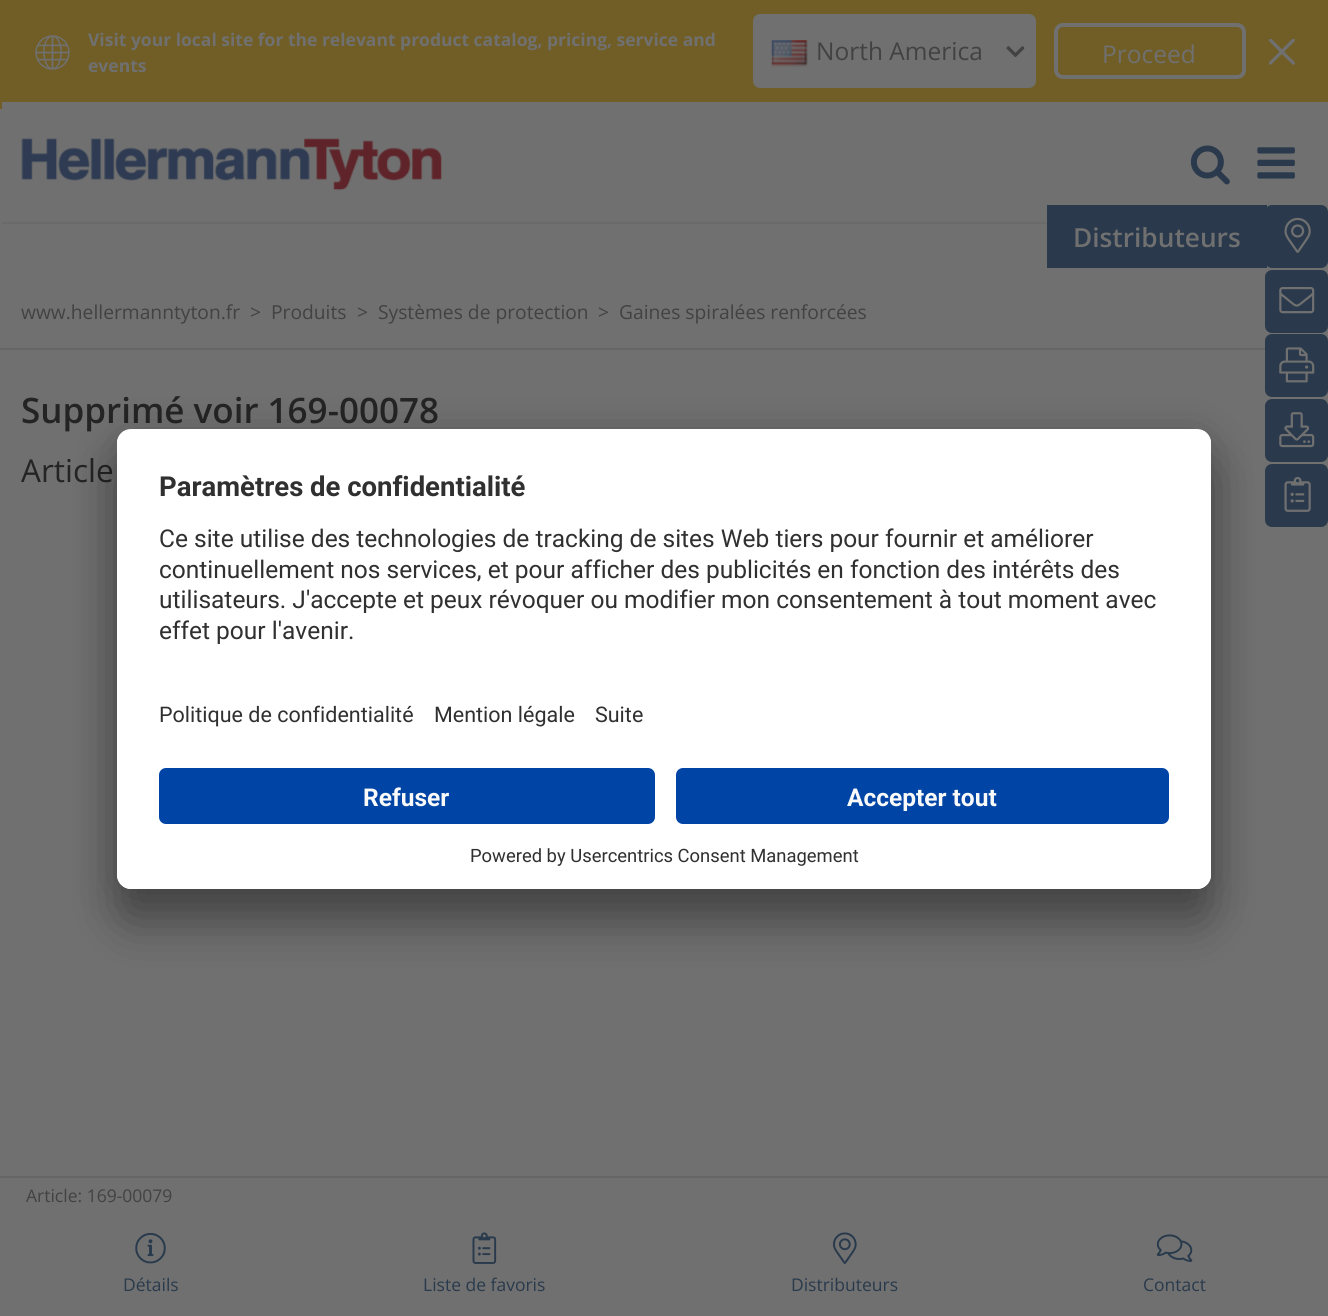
import math
import cairo

surface = cairo.ImageSurface(cairo.Format.RGB24, 1328, 1316)
ctx = cairo.Context(surface)
options = cairo.FontOptions()
options.set_hint_metrics(cairo.HintMetrics.OFF)
options.set_hint_style(cairo.HintStyle.NONE)
ctx.set_font_options(options)
ctx.set_miter_limit(4)


def ink(r, g, b):
    ctx.set_source_rgb(r / 255, g / 255, b / 255)


def write(x, y, s, family, size, color, bold=False, italic=False):
    ctx.select_font_face(family, cairo.FontSlant.ITALIC if italic else cairo.FontSlant.NORMAL, cairo.FontWeight.BOLD if bold else cairo.FontWeight.NORMAL)
    ctx.set_font_size(size)
    ink(*color)
    ctx.move_to(x, y)
    ctx.show_text(s)


def block(x, y, w, h, *color):
    ink(*color)
    ctx.rectangle(x, y, w, h)
    ctx.fill()


def round_path(x, y, w, h, r):
    ctx.new_sub_path()
    for i, (u, v) in enumerate([(x + w - r, y + h - r), (x + r, y + h - r), (x + r, y + r), (x + w - r, y + r)]):
        ctx.arc(u, v, r, i * math.pi / 2, (i + 1) * math.pi / 2)
    ctx.close_path()


def blur_box(x, y, w, h, r, blur, alpha):
    ctx.push_group_with_content(cairo.Content.ALPHA)
    ctx.set_operator(cairo.Operator.SOURCE)
    for i in range(15, -16, -2):
        e = blur * i / 6
        if min(w, h) + 2 * e > 0:
            ctx.set_source_rgba(0, 0, 0, alpha * math.erfc((i - 1) / 8.5) / 2)
            round_path(x - e, y - e, w + 2 * e, h + 2 * e, max(0, min(r + e + blur * .6, min(w, h) / 2 + e)))
            ctx.fill()
    ctx.mask(ctx.pop_group())


def paste(path, x, y, w, h):
    ctx.save()
    ctx.set_source_surface(cairo.ImageSurface.create_from_png(path), x, y)
    ctx.rectangle(x, y, w, h)
    ctx.fill()
    ctx.restore()


s1 = dict(family="Open Sans", size=17.5, color=(112, 112, 112), bold=True)
s2 = dict(family="Open Sans", size=24.5, color=(66, 66, 66))
s3 = dict(family="Open Sans", size=24.5, color=(112, 112, 112))
s4 = dict(family="Open Sans SemiBold", size=26.25, color=(112, 112, 112))
s5 = dict(family="Open Sans", size=19.25, color=(66, 66, 66))
s6 = dict(family="Open Sans SemiBold", size=35, color=(36, 36, 36))
s7 = dict(family="Open Sans", size=31.5, color=(36, 36, 36))
s8 = dict(family="Open Sans", size=17.5, color=(66, 66, 66))
s9 = dict(family="Open Sans", size=17.5, color=(41, 58, 76))
s10 = dict(family="Roboto", size=27.5, color=(48, 48, 48), bold=True)
s11 = dict(family="Roboto", size=24.5, color=(48, 48, 48))
s12 = dict(family="Roboto", size=21.5, color=(48, 48, 48))
s13 = dict(family="Roboto", size=24.5, color=(250, 250, 250), bold=True)
s14 = dict(family="Roboto", size=18.4, color=(48, 48, 48))

ink(112, 112, 112)
ctx.paint()
block(0, 0, 1328, 109, 112, 94, 38)
paste("pic1.png", 35, 35, 35, 35)
write(88, 46, "Visit your local site for the relevant product catalog, pricing, service and", **s1)
write(88, 72, "events", **s1)
round_path(753, 14, 283, 74, 7)
ctx.fill()
paste("pic2.png", 771, 40, 37, 27)
write(816, 60, "North America", **s2)
paste("pic3.png", 1006, 46, 19, 12)
round_path(1056, 25, 188, 52, 7)
ink(112, 112, 112)
ctx.set_line_width(4)
ctx.stroke()
write(1102, 63, "Proceed", **s3)
paste("pic4.png", 1269, 39, 26, 26)
block(2, 102, 1326, 7, 112, 112, 112)
block(2, 222, 1045, 2, 106, 106, 106)
paste("pic5.png", 21, 138, 421, 53)
paste("pic6.png", 1190, 145, 40, 40)
paste("pic7.png", 1257, 147, 38, 32)
ink(42, 58, 76)
round_path(1265, 205, 63, 63, 7)
ctx.fill()
block(1047, 205, 220, 63, 42, 58, 76)
write(1073, 247, "Distributeurs", **s4)
paste("pic8.png", 1284, 217, 27, 36)
ink(42, 58, 76)
round_path(1265, 270, 63, 63, 7)
ctx.fill()
paste("pic9.png", 1279, 287, 36, 27)
round_path(1265, 334, 63, 63, 7)
ctx.fill()
paste("pic10.png", 1279, 347, 36, 36)
round_path(1265, 399, 63, 63, 7)
ctx.fill()
paste("pic11.png", 1279, 412, 36, 36)
round_path(1265, 464, 63, 63, 7)
ctx.fill()
paste("pic12.png", 1284, 476, 27, 36)
block(0, 348, 1265, 2, 102, 102, 102)
write(21, 319, "www.hellermanntyton.fr", **s5)
write(250, 319, ">", **s5)
write(271, 319, "Produits", **s5)
write(357, 319, ">", **s5)
write(378, 319, "Systèmes de protection", **s5)
write(598, 319, ">", **s5)
write(619, 319, "Gaines spiralées renforcées", **s5)
write(21, 423, "Supprimé voir 169-00078", **s6)
write(21, 482, "Article", **s7)
block(0, 1176, 1328, 2, 102, 102, 102)
write(26, 1202, "Article: 169-00079", **s8)
paste("pic13.png", 135, 1232, 31, 32)
write(123, 1291, "Détails", **s9)
paste("pic14.png", 472, 1232, 25, 32)
write(423, 1291, "Liste de favoris", **s9)
paste("pic15.png", 833, 1232, 24, 32)
write(791, 1291, "Distributeurs", **s9)
paste("pic16.png", 1156, 1234, 37, 28)
write(1143, 1291, "Contact", **s9)
ink(0, 0, 0)
blur_box(117, 464, 1094, 460, 14, 24.5, 0.3)
blur_box(117, 438, 1094, 460, 14, 23, 0.22)
ink(255, 255, 255)
round_path(117, 429, 1094, 460, 14)
ctx.fill()
ctx.save()
round_path(117, 429, 1094, 460, 14)
ctx.clip()
ctx.new_path()
ctx.move_to(131, 429)
ctx.line_to(1197, 429)
ctx.curve_to(1204.5, 429, 1211, 435.5, 1211, 443)
ctx.line_to(1211, 754)
ctx.line_to(117, 754)
ctx.line_to(117, 443)
ctx.curve_to(117, 435.5, 123.5, 429, 131, 429)
ctx.close_path()
ctx.clip()
block(117, 431, 1094, 323, 255, 255, 255)
ctx.restore()
write(159, 496, "Paramètres de confidentialité", **s10)
write(159, 547, "Ce site utilise des technologies de tracking de sites Web tiers pour fournir et améliorer", **s11)
write(159, 578, "continuellement nos services, et pour afficher des publicités en fonction des intérêts des", **s11)
write(159, 608, "utilisateurs. J'accepte et peux révoquer ou modifier mon consentement à tout moment avec", **s11)
write(159, 639, "effet pour l'avenir.", **s11)
write(159, 722, "Politique de confidentialité", **s12)
write(434, 722, "Mention légale", **s12)
write(595, 722, "Suite", **s12)
ink(255, 255, 255)
ctx.new_path()
ctx.move_to(117, 754)
ctx.line_to(1211, 754)
ctx.line_to(1211, 875)
ctx.curve_to(1211, 882.5, 1204.5, 889, 1197, 889)
ctx.line_to(131, 889)
ctx.curve_to(123.5, 889, 117, 882.5, 117, 875)
ctx.close_path()
ctx.fill()
ink(0, 69, 165)
round_path(159, 768, 496, 56, 7)
ctx.fill()
write(363, 806, "Refuser", **s13)
ink(0, 69, 165)
round_path(676, 768, 493, 56, 7)
ctx.fill()
write(847, 806, "Accepter tout", **s13)
write(470, 862, "Powered by Usercentrics Consent Management", **s14)
surface.write_to_png("screenshot.png")
